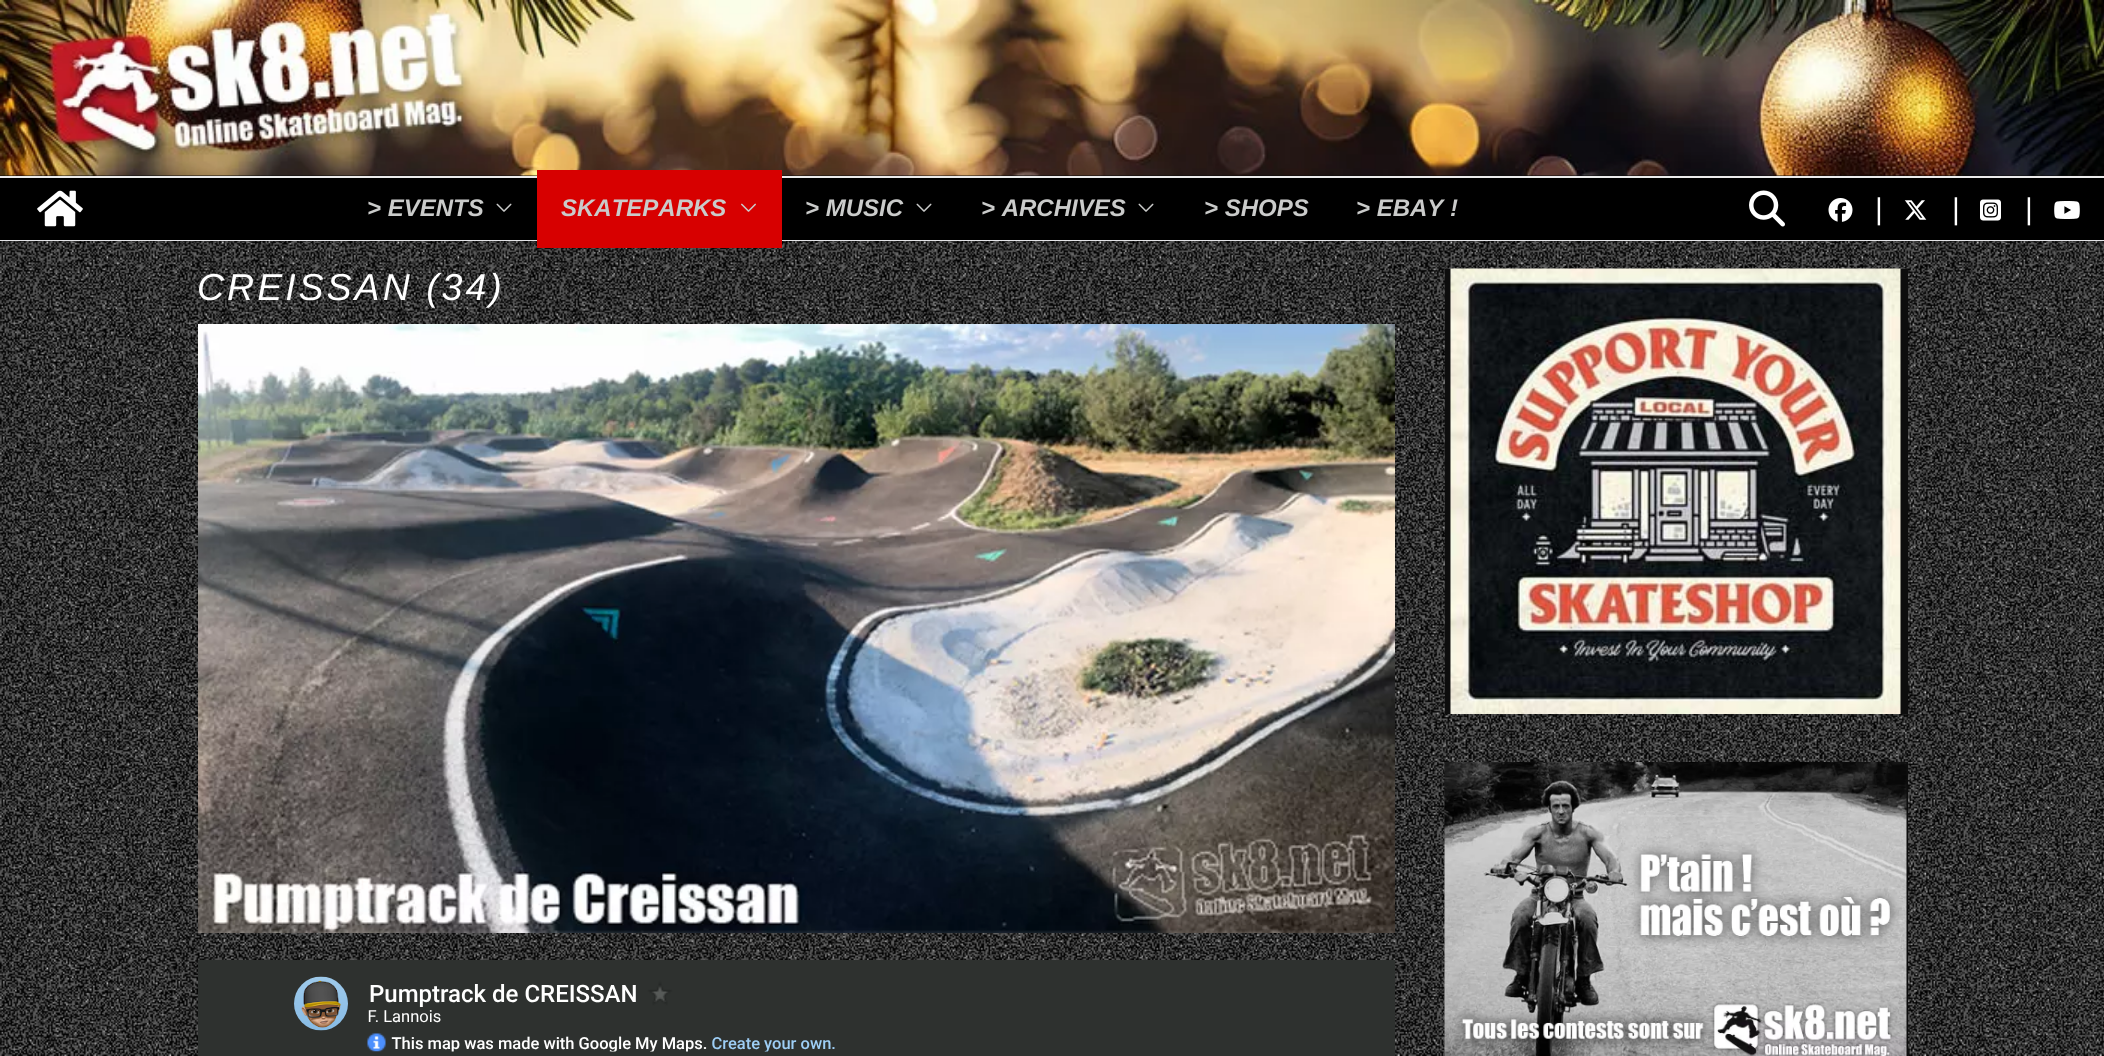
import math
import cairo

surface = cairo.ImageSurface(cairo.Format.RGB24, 2104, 1056)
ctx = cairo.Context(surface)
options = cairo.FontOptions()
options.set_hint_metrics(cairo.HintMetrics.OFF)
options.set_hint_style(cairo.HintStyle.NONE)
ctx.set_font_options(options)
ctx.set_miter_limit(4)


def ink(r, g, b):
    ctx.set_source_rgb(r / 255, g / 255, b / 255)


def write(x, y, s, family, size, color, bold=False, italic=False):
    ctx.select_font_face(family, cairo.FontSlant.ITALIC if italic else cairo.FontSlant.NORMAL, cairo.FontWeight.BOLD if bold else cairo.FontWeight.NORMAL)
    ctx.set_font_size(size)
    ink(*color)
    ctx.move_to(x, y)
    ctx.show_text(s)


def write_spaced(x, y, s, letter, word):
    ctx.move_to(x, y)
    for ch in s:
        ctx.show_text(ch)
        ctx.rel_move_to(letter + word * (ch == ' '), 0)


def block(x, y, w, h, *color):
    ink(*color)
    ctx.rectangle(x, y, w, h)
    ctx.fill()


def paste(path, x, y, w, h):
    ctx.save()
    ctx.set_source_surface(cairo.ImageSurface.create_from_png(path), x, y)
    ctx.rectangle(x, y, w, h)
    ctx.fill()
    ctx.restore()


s1 = dict(family="Liberation Sans", size=24, color=(202, 203, 202), bold=True, italic=True)
s2 = dict(family="Liberation Sans", size=30, color=(255, 255, 255))

ink(228, 228, 231)
ctx.paint()
block(0, 175, 2104, 1, 13, 13, 13)
paste("pic1.png", 0, 0, 2104, 176)
block(0, 176, 2104, 2, 235, 235, 235)
block(0, 178, 2104, 62, 0, 0, 0)
paste("pic2.png", 37, 190, 46, 37)
write(367, 216, "> EVENTS", **s1)
paste("pic3.png", 496, 203, 16, 9)
paste("pic10.png", 0, 241, 2104, 815)
block(537, 170, 245, 78, 215, 0, 0)
write(561, 216, "SKATEPARKS", **s1)
paste("pic4.png", 741, 203, 15, 9)
write(805, 216, "> MUSIC", **s1)
paste("pic3.png", 916, 203, 16, 9)
write(981, 216, "> ARCHIVES", **s1)
paste("pic3.png", 1138, 203, 16, 9)
write(1204, 216, "> SHOPS", **s1)
write(1356, 216, "> EBAY !", **s1)
paste("pic5.png", 1749, 190, 36, 37)
paste("pic6.png", 1828, 198, 25, 24)
write(1875, 219, "|", **s2)
paste("pic7.png", 1904, 200, 23, 20)
write(1952, 219, "|", **s2)
paste("pic8.png", 1980, 199, 21, 22)
write(2025, 219, "|", **s2)
paste("pic9.png", 2054, 201, 26, 18)
ctx.select_font_face("Liberation Sans", cairo.FontSlant.ITALIC)
ctx.set_font_size(37.5)
write_spaced(197, 300, "CREISSAN (34)", 3, 0)
paste("pic11.png", 198, 324, 1197, 609)
paste("pic12.png", 198, 960, 1197, 96)
block(1445, 269, 463, 445, 13, 13, 13)
paste("pic13.png", 1450, 268, 451, 446)
block(1906, 762, 2, 294, 13, 13, 13)
paste("pic14.png", 1444, 762, 463, 294)
surface.write_to_png("screenshot.png")
